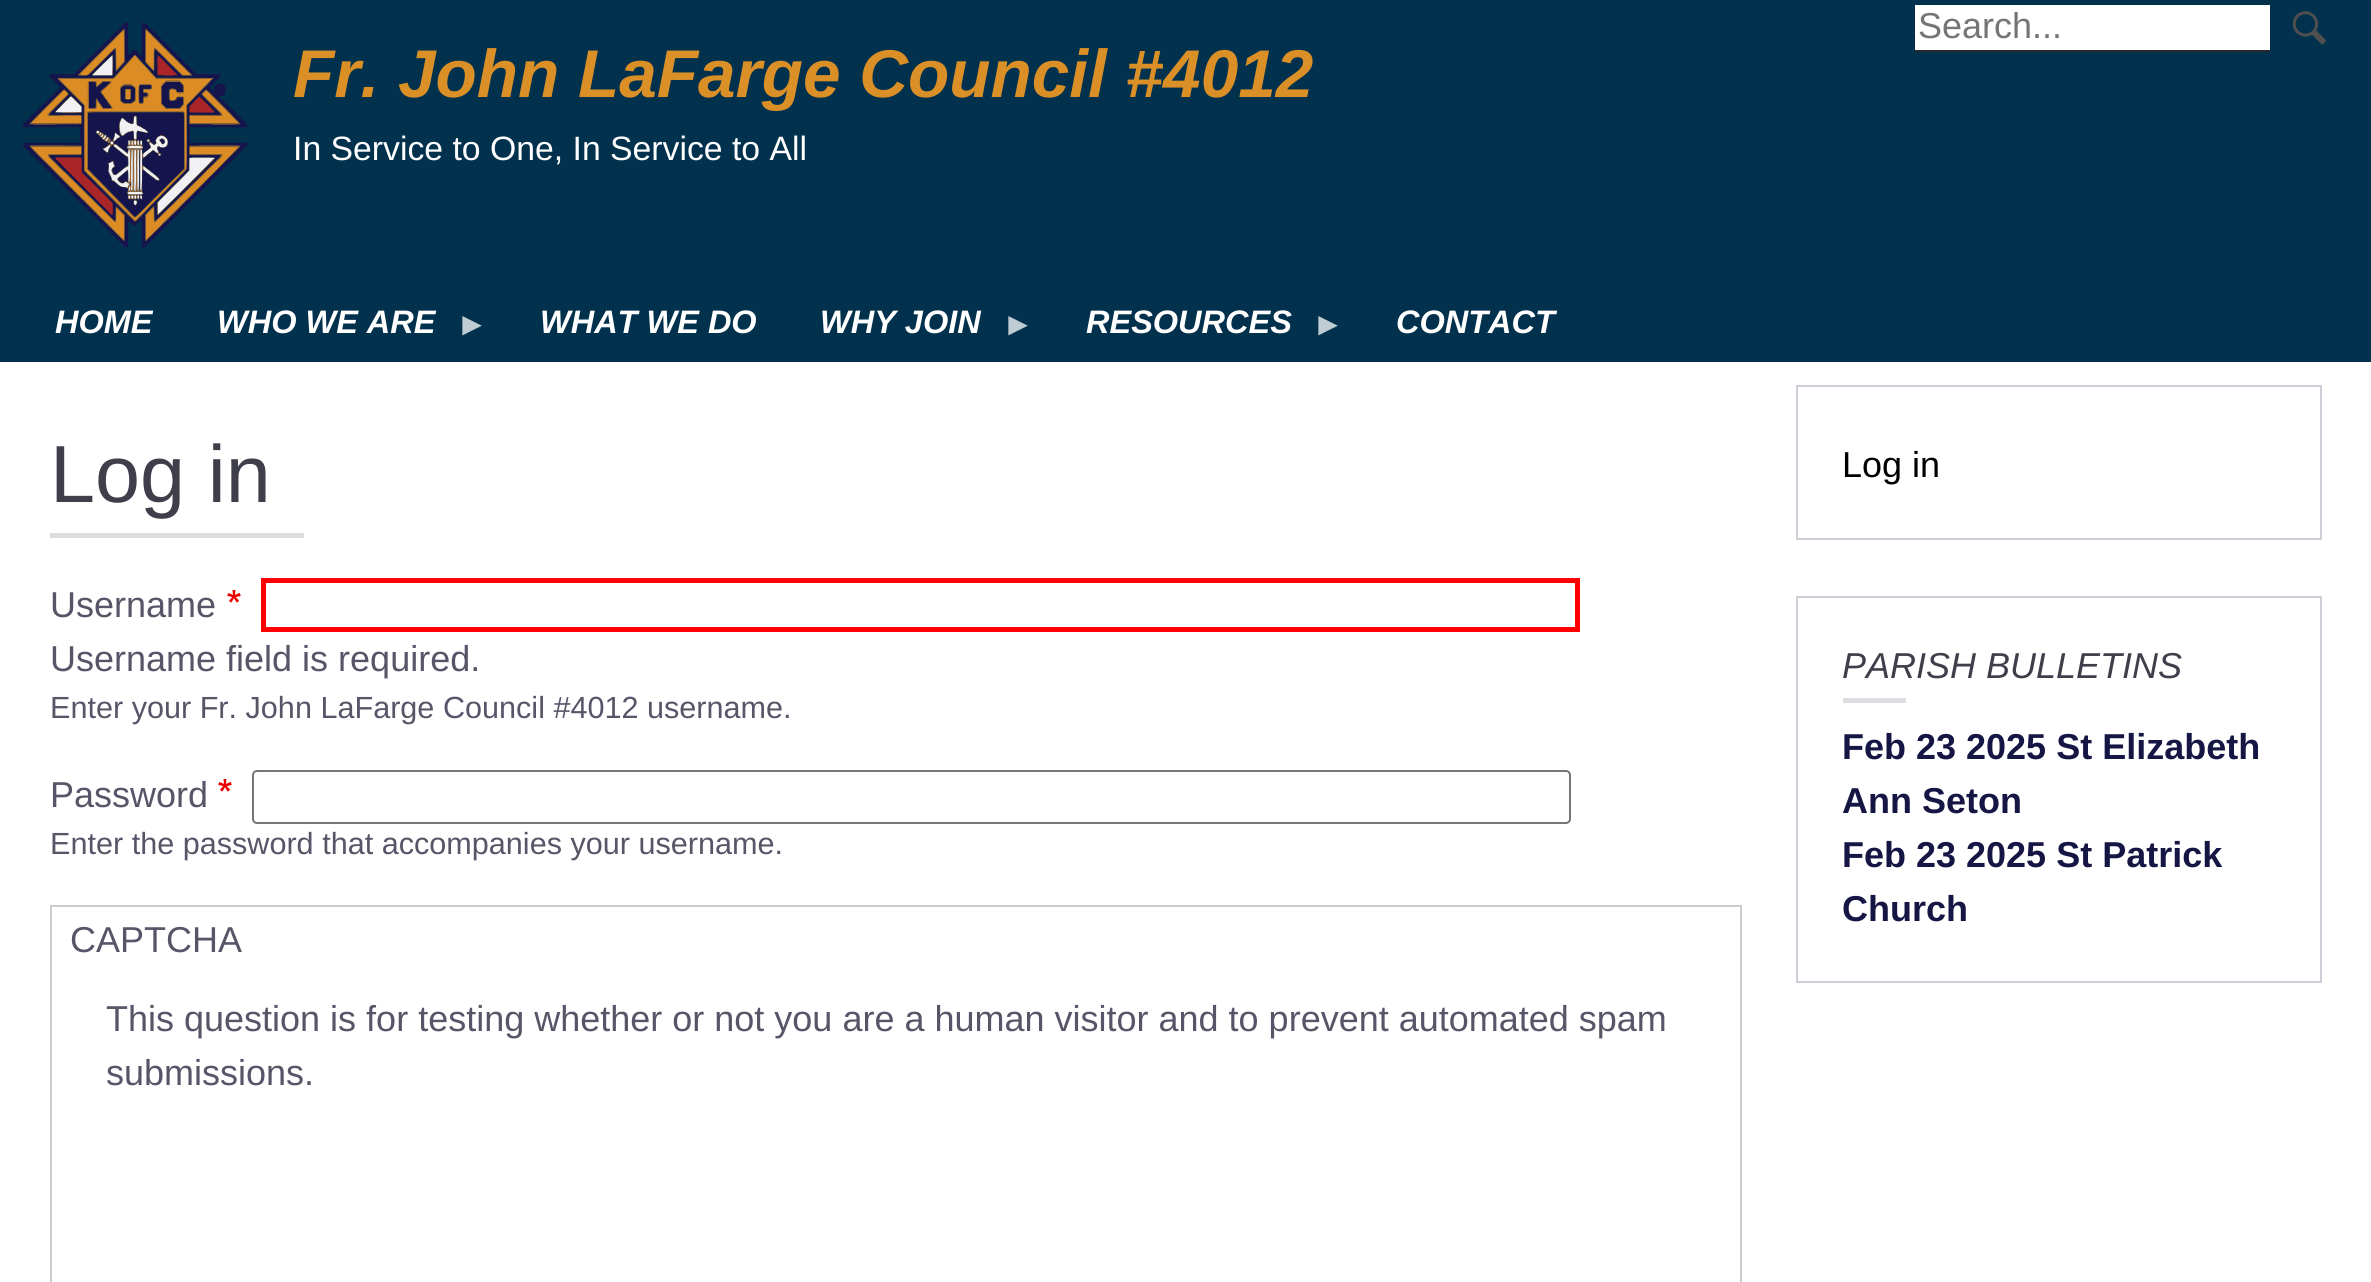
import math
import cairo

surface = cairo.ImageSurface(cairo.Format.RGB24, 2371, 1282)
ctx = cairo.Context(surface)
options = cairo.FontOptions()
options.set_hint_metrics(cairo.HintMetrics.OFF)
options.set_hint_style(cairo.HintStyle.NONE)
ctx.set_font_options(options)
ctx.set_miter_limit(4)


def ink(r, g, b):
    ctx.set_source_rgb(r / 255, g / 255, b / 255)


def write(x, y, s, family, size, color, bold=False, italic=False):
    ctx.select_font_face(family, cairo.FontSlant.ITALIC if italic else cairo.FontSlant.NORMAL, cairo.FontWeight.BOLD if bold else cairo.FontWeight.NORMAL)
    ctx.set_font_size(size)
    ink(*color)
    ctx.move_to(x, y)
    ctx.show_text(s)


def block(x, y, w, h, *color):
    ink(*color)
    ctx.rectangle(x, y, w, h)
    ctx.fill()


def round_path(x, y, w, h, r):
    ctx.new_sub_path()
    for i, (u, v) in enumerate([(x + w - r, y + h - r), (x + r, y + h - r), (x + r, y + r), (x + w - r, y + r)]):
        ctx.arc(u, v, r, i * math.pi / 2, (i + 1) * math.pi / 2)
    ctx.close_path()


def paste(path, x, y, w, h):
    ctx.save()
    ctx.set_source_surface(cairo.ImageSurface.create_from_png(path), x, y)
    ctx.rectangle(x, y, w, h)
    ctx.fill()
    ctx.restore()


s1 = dict(family="Liberation Sans", size=36, color=(117, 117, 117))
s2 = dict(family="Liberation Sans", size=67.5, color=(218, 143, 39), bold=True, italic=True)
s3 = dict(family="Liberation Sans", size=33.75, color=(255, 255, 255))
s4 = dict(family="Liberation Sans", size=32.5, color=(255, 255, 255), bold=True, italic=True)
s5 = dict(family="Liberation Sans", size=32.5, color=(192, 204, 211), bold=True, italic=True)
s6 = dict(family="Liberation Sans", size=81, color=(63, 63, 76))
s7 = dict(family="Liberation Sans", size=36, color=(86, 86, 104))
s8 = dict(family="Liberation Sans", size=30.6, color=(86, 86, 104))
s9 = dict(family="Liberation Sans", size=36, color=(0, 0, 0))
s10 = dict(family="Liberation Sans", size=36, color=(63, 63, 76), italic=True)
s11 = dict(family="Liberation Sans", size=36, color=(21, 22, 68), bold=True)

ink(255, 255, 255)
ctx.paint()
block(0, 0, 2371, 362, 2, 49, 77)
block(1915, 5, 355, 45, 255, 255, 255)
block(1915, 50, 355, 2, 40, 40, 48)
write(1918, 38, "Search...", **s1)
paste("pic1.png", 2293, 11, 33, 34)
paste("pic2.png", 23, 23, 225, 225)
write(293, 97, "Fr. John LaFarge Council #4012", **s2)
write(293, 160, "In Service to One, In Service to All", **s3)
write(55, 333, "HOME", **s4)
write(217, 333, "WHO WE ARE", **s4)
write(456, 335, "►", **s5)
write(540, 333, "WHAT WE DO", **s4)
write(820, 333, "WHY JOIN", **s4)
write(1002, 335, "►", **s5)
write(1086, 333, "RESOURCES", **s4)
write(1312, 335, "►", **s5)
write(1396, 333, "CONTACT", **s4)
write(50, 502, "Log in", **s6)
block(50, 533, 254, 5, 220, 220, 225)
write(50, 617, "Username", **s7)
paste("pic3.png", 227, 590, 14, 13)
ctx.rectangle(263.5, 580.5, 1314, 49)
ink(255, 0, 0)
ctx.set_line_width(5)
ctx.stroke()
write(50, 671, "Username field is required.", **s7)
write(50, 718, "Enter your Fr. John LaFarge Council #4012 username.", **s8)
write(50, 807, "Password", **s7)
paste("pic3.png", 218, 779, 14, 13)
round_path(253, 771, 1317, 52, 4)
ink(118, 118, 118)
ctx.set_line_width(2)
ctx.stroke()
write(50, 854, "Enter the password that accompanies your username.", **s8)
ctx.rectangle(51, 906, 1690, 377)
ink(204, 204, 204)
ctx.stroke()
write(70, 952, "CAPTCHA", **s7)
write(106, 1031, "This question is for testing whether or not you are a human visitor and to prevent automated spam", **s7)
write(106, 1085, "submissions.", **s7)
ctx.rectangle(1797, 386, 524, 153)
ink(206, 206, 214)
ctx.stroke()
write(1842, 477, "Log in", **s9)
ctx.rectangle(1797, 597, 524, 385)
ink(206, 206, 214)
ctx.stroke()
write(1842, 678, "PARISH BULLETINS", **s10)
block(1843, 698, 63, 5, 220, 220, 225)
write(1842, 759, "Feb 23 2025 St Elizabeth", **s11)
write(1842, 813, "Ann Seton", **s11)
write(1842, 867, "Feb 23 2025 St Patrick", **s11)
write(1842, 921, "Church", **s11)
surface.write_to_png("screenshot.png")
